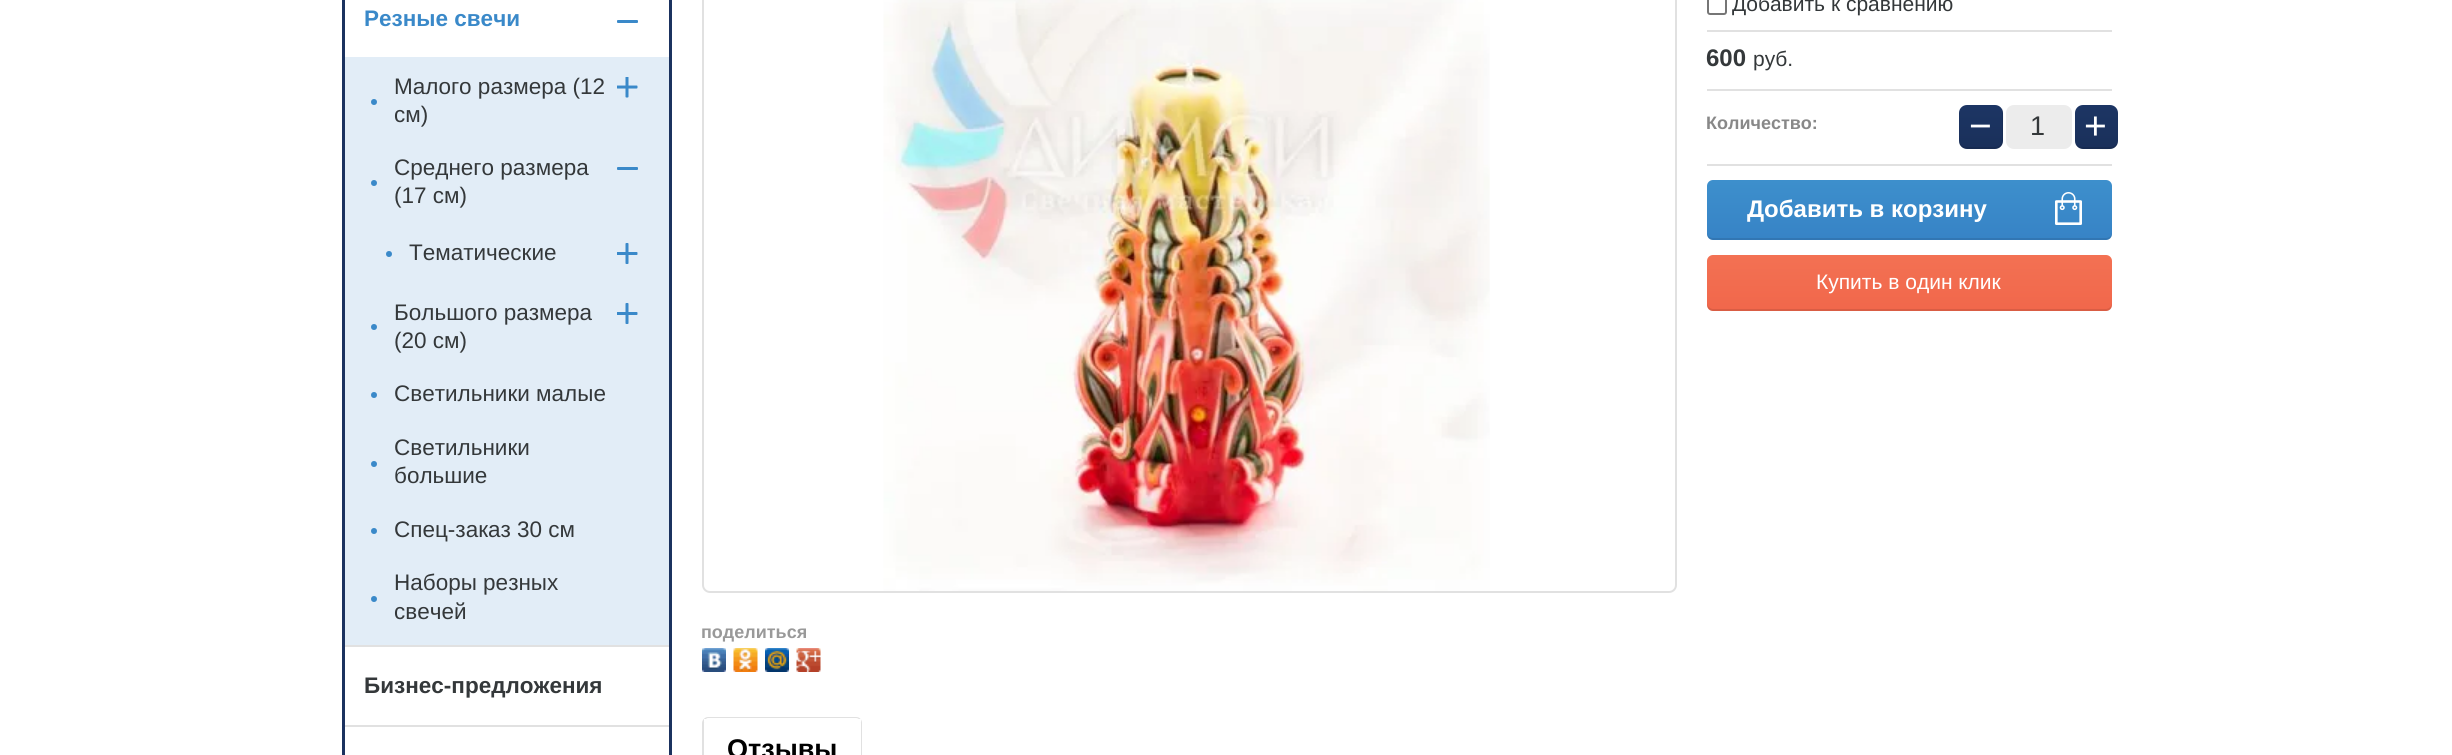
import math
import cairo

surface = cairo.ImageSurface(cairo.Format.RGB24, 2452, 755)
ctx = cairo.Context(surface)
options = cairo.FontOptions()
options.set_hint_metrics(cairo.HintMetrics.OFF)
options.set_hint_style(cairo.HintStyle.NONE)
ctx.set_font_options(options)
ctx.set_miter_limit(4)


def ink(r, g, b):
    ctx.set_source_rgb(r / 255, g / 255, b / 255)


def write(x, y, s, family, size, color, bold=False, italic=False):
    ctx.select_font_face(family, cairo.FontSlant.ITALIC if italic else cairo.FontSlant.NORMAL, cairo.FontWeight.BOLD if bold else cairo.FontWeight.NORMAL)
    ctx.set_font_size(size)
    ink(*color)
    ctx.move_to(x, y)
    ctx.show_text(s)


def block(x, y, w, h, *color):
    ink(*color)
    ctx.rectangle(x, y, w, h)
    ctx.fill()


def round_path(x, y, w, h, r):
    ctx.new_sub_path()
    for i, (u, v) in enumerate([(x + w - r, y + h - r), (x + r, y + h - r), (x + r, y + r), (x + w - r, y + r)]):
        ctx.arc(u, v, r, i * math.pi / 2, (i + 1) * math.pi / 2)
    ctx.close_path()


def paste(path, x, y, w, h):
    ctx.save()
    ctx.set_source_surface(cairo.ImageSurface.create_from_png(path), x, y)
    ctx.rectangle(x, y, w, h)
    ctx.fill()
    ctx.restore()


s1 = dict(family="Liberation Sans", size=22.5, color=(58, 137, 201), bold=True)
s2 = dict(family="Liberation Sans", size=22.5, color=(52, 56, 58))
s3 = dict(family="Liberation Sans", size=22.5, color=(52, 56, 58), bold=True)
s4 = dict(family="Liberation Sans", size=21, color=(52, 56, 58))
s5 = dict(family="Liberation Sans", size=24, color=(52, 56, 58), bold=True)
s6 = dict(family="Liberation Sans", size=18, color=(136, 136, 136), bold=True)
s7 = dict(family="Liberation Sans", size=39, color=(255, 255, 255))
s8 = dict(family="Liberation Sans", size=27, color=(52, 56, 58))
s9 = dict(family="Liberation Sans", size=24, color=(255, 255, 255), bold=True)
s10 = dict(family="Liberation Sans", size=21, color=(255, 255, 255))
s11 = dict(family="Liberation Sans", size=18, color=(153, 153, 153), bold=True)
s12 = dict(family="Liberation Sans", size=27, color=(0, 0, 0), bold=True)

ink(255, 255, 255)
ctx.paint()
ctx.rectangle(343.5, -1.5, 327, 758)
ink(27, 50, 95)
ctx.set_line_width(3)
ctx.stroke()
write(364, 26, "Резные свечи", **s1)
round_path(617, 20, 21, 3, 1)
ctx.fill()
block(345, 57, 324, 588, 226, 237, 247)
write(394, 94, "Малого размера (12", **s2)
ink(58, 137, 201)
ctx.new_path()
ctx.arc(374, 102, 3, 0, 2 * math.pi)
ctx.fill()
write(394, 122, "см)", **s2)
paste("pic1.png", 617, 77, 21, 21)
write(394, 175, "Среднего размера", **s2)
ink(58, 137, 201)
ctx.new_path()
ctx.arc(374, 183, 3, 0, 2 * math.pi)
ctx.fill()
write(394, 203, "(17 см)", **s2)
ink(58, 137, 201)
round_path(617, 167, 21, 3, 1)
ctx.fill()
ctx.arc(389, 254, 3, 0, 2 * math.pi)
ctx.fill()
write(409, 260, "Тематические", **s2)
paste("pic2.png", 617, 243, 21, 21)
write(394, 320, "Большого размера", **s2)
ink(58, 137, 201)
ctx.new_path()
ctx.arc(374, 327, 3, 0, 2 * math.pi)
ctx.fill()
write(394, 348, "(20 см)", **s2)
paste("pic2.png", 617, 303, 21, 21)
ink(58, 137, 201)
ctx.arc(374, 395, 3, 0, 2 * math.pi)
ctx.fill()
write(394, 401, "Светильники малые", **s2)
write(394, 455, "Светильники", **s2)
ink(58, 137, 201)
ctx.new_path()
ctx.arc(374, 464, 3, 0, 2 * math.pi)
ctx.fill()
write(394, 483, "большие", **s2)
ink(58, 137, 201)
ctx.new_path()
ctx.arc(374, 531, 3, 0, 2 * math.pi)
ctx.fill()
write(394, 537, "Спец-заказ 30 см", **s2)
write(394, 590, "Наборы резных", **s2)
ink(58, 137, 201)
ctx.new_path()
ctx.arc(374, 599, 3, 0, 2 * math.pi)
ctx.fill()
write(394, 619, "свечей", **s2)
block(345, 645, 324, 2, 225, 225, 225)
write(364, 693, "Бизнес-предложения", **s3)
block(345, 725, 324, 2, 225, 225, 225)
round_path(1708, -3, 18, 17, 2)
ink(118, 118, 118)
ctx.set_line_width(2)
ctx.stroke()
write(1732, 11, "Добавить к сравнению", **s4)
block(1707, 30, 405, 2, 225, 225, 225)
write(1706, 66, "600", **s5)
write(1753, 66, "руб.", **s4)
block(1707, 89, 405, 2, 225, 225, 225)
block(1707, 164, 405, 2, 225, 225, 225)
write(1706, 129, "Количество:", **s6)
gradient = cairo.LinearGradient(1981, 149, 1981, 105)
gradient.add_color_stop_rgba(0, 0.102, 0.188, 0.353, 1)
gradient.add_color_stop_rgba(1, 0.11, 0.208, 0.392, 1)
ctx.set_source(gradient)
round_path(1959, 105, 44, 44, 8)
ctx.fill()
ctx.set_source_rgba(0, 0, 0, 0.1)
ctx.new_path()
ctx.move_to(1959, 140)
ctx.curve_to(1959, 148, 1965, 149, 1972, 149)
ctx.line_to(1981, 149)
ctx.curve_to(2004, 149, 2003, 150, 2003, 127)
ctx.curve_to(2003, 123, 2004, 112, 2002, 108)
ctx.line_to(2002, 126)
ctx.curve_to(2002, 149, 2004, 147, 1980, 147)
ctx.line_to(1971, 147)
ctx.curve_to(1966, 147, 1959, 147, 1959, 140)
ctx.close_path()
ctx.fill()
write(1969, 139, "−", **s7)
ink(236, 236, 236)
round_path(2006, 105, 66, 44, 8)
ctx.fill()
write(2030, 135, "1", **s8)
gradient = cairo.LinearGradient(2096, 149, 2096, 105)
gradient.add_color_stop_rgba(0, 0.102, 0.188, 0.353, 1)
gradient.add_color_stop_rgba(1, 0.11, 0.208, 0.392, 1)
ctx.set_source(gradient)
round_path(2075, 105, 43, 44, 8)
ctx.fill()
ctx.set_source_rgba(0, 0, 0, 0.1)
ctx.new_path()
ctx.move_to(2076, 144)
ctx.curve_to(2078, 149, 2083, 149, 2088, 149)
ctx.line_to(2096, 149)
ctx.curve_to(2105, 149, 2118, 152, 2118, 140)
ctx.curve_to(2118, 144, 2115, 147, 2110, 147)
ctx.line_to(2082, 147)
ctx.curve_to(2080, 147, 2077, 146, 2076, 144)
ctx.close_path()
ctx.fill()
write(2084, 139, "+", **s7)
gradient = cairo.LinearGradient(1910, 240, 1910, 180)
gradient.add_color_stop_rgba(0, 0.216, 0.514, 0.776, 1)
gradient.add_color_stop_rgba(1, 0.239, 0.561, 0.8, 1)
ctx.set_source(gradient)
round_path(1707, 180, 405, 60, 6)
ctx.fill()
ctx.set_source_rgba(0, 0, 0, 0.1)
ctx.new_path()
ctx.move_to(1707, 232)
ctx.curve_to(1707, 236, 1708, 240, 1713, 240)
ctx.line_to(2106, 240)
ctx.curve_to(2111, 240, 2112, 236, 2112, 232)
ctx.curve_to(2112, 236, 2109, 238, 2106, 238)
ctx.line_to(1713, 238)
ctx.curve_to(1710, 238, 1707, 236, 1707, 232)
ctx.close_path()
ctx.fill()
write(1747, 217, "Добавить в корзину", **s9)
paste("pic3.png", 2055, 192, 27, 33)
gradient = cairo.LinearGradient(1910, 311, 1910, 255)
gradient.add_color_stop_rgba(0, 0.945, 0.404, 0.294, 1)
gradient.add_color_stop_rgba(1, 0.953, 0.443, 0.325, 1)
ctx.set_source(gradient)
round_path(1707, 255, 405, 56, 6)
ctx.fill()
ctx.set_source_rgba(0, 0, 0, 0.1)
ctx.new_path()
ctx.move_to(1707, 303)
ctx.curve_to(1707, 307, 1708, 311, 1713, 311)
ctx.line_to(2106, 311)
ctx.curve_to(2111, 311, 2112, 307, 2112, 303)
ctx.curve_to(2112, 306, 2109, 309, 2106, 309)
ctx.line_to(1713, 309)
ctx.curve_to(1710, 309, 1707, 306, 1707, 303)
ctx.close_path()
ctx.fill()
write(1816, 289, "Купить в один клик", **s10)
round_path(703, -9, 973, 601, 7)
ink(225, 225, 225)
ctx.stroke()
paste("pic4.png", 883, 0, 607, 591)
write(701, 638, "поделиться", **s11)
paste("pic5.png", 702, 648, 24, 24)
paste("pic6.png", 733, 648, 25, 24)
paste("pic7.png", 765, 648, 24, 24)
paste("pic8.png", 796, 648, 25, 24)
ink(225, 225, 225)
ctx.set_fill_rule(cairo.FillRule.EVEN_ODD)
ctx.new_path()
ctx.move_to(708, 717)
ctx.line_to(856, 717)
ctx.curve_to(860, 717, 862, 720, 862, 723)
ctx.line_to(862, 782)
ctx.line_to(702, 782)
ctx.line_to(702, 723)
ctx.curve_to(702, 720, 705, 717, 708, 717)
ctx.close_path()
ctx.move_to(708, 718)
ctx.line_to(856, 718)
ctx.curve_to(859, 718, 861, 721, 861, 723)
ctx.line_to(861, 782)
ctx.line_to(704, 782)
ctx.line_to(704, 723)
ctx.curve_to(704, 721, 706, 718, 708, 718)
ctx.close_path()
ctx.fill()
block(704, 719, 157, 3, 255, 255, 255)
write(727, 758, "Отзывы", **s12)
surface.write_to_png("screenshot.png")
